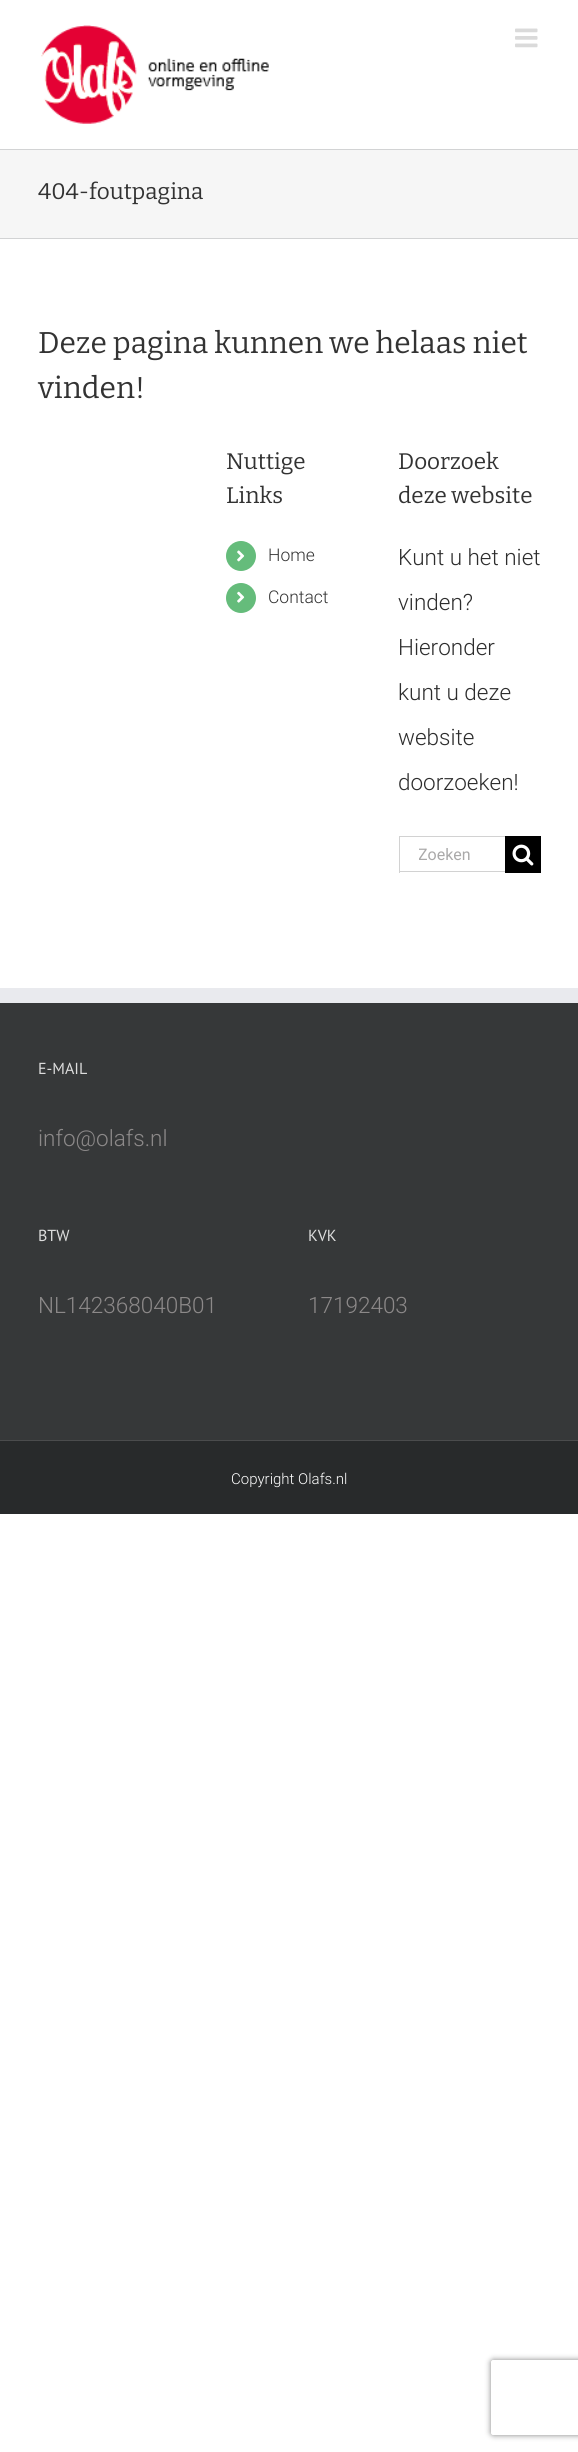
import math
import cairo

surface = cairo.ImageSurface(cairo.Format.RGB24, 578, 2452)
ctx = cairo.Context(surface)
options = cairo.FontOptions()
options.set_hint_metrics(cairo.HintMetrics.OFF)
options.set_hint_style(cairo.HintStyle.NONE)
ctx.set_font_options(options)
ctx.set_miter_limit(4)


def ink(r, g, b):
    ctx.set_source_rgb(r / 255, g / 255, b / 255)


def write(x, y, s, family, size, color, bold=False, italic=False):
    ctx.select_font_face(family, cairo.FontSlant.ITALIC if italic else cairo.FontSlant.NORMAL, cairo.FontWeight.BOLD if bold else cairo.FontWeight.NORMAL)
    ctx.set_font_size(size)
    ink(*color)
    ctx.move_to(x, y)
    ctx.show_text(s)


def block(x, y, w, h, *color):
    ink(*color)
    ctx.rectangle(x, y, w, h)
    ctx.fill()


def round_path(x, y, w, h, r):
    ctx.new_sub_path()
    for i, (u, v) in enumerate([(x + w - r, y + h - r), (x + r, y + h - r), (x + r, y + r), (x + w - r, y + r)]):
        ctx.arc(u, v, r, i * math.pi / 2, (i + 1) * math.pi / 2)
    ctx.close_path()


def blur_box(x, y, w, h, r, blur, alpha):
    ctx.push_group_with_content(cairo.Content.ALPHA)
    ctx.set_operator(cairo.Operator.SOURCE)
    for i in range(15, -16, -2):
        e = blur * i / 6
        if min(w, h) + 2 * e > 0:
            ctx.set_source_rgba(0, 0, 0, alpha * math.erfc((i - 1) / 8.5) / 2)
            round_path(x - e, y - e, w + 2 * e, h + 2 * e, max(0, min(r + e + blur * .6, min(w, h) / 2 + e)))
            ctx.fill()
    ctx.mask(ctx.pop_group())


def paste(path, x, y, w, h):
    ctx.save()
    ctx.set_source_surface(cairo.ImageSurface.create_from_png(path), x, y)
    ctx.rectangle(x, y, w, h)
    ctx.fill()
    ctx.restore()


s1 = dict(family="Bitter Thin", size=22.5, color=(51, 51, 51))
s2 = dict(family="Bitter Thin", size=30, color=(51, 51, 51))
s3 = dict(family="Roboto Light", size=17.5, color=(51, 51, 51))
s4 = dict(family="Roboto Light", size=22.5, color=(45, 45, 45))
s5 = dict(family="Roboto", size=16, color=(170, 169, 169))
s6 = dict(family="PT Sans", size=16, color=(221, 221, 221))
s7 = dict(family="Roboto Light", size=22.5, color=(140, 137, 137))
s8 = dict(family="Roboto Light", size=15, color=(255, 255, 255))

ink(255, 255, 255)
ctx.paint()
paste("pic1.png", 41, 25, 228, 99)
paste("pic2.png", 515, 28, 23, 20)
block(0, 150, 578, 88, 246, 246, 246)
block(0, 149, 578, 1, 210, 211, 212)
block(0, 238, 578, 1, 210, 211, 212)
write(38, 199, "404-foutpagina", **s1)
write(38, 353, "Deze pagina kunnen we helaas niet", **s2)
write(38, 398, "vinden!", **s2)
write(226, 469, "Nuttige", **s1)
write(226, 503, "Links", **s1)
ink(101, 188, 123)
ctx.new_path()
ctx.arc(241, 556, 15, 0, 2 * math.pi)
ctx.fill()
paste("pic3.png", 237, 550, 8, 12)
write(268, 561, "Home", **s3)
ink(101, 188, 123)
ctx.new_path()
ctx.arc(241, 598, 15, 0, 2 * math.pi)
ctx.fill()
paste("pic4.png", 237, 591, 8, 12)
write(268, 603, "Contact", **s3)
write(398, 469, "Doorzoek", **s1)
write(398, 503, "deze website", **s1)
write(398, 565, "Kunt u het niet", **s4)
write(398, 610, "vinden?", **s4)
write(398, 655, "Hieronder", **s4)
write(398, 700, "kunt u deze", **s4)
write(398, 745, "website", **s4)
write(398, 790, "doorzoeken!", **s4)
block(399, 836, 106, 1, 210, 210, 210)
block(399, 871, 106, 1, 210, 210, 210)
block(399, 836, 1, 37, 210, 210, 210)
ctx.save()
ctx.rectangle(419, 845, 51, 19)
ctx.clip()
write(418, 860, "Zoeken", **s5)
ctx.restore()
block(505, 836, 36, 37, 0, 0, 0)
paste("pic5.png", 512, 844, 22, 22)
block(0, 1003, 578, 437, 54, 56, 57)
block(0, 988, 578, 15, 233, 234, 238)
write(38, 1074, "E-MAIL", **s6)
write(38, 1146, "info@olafs.nl", **s7)
write(38, 1241, "BTW", **s6)
write(38, 1313, "NL142368040B01", **s7)
write(308, 1241, "KVK", **s6)
write(308, 1313, "17192403", **s7)
block(0, 1441, 578, 73, 40, 42, 43)
block(0, 1440, 578, 1, 75, 76, 77)
write(231, 1484, "Copyright Olafs.nl", **s8)
ctx.save()
ctx.set_fill_rule(cairo.FillRule.EVEN_ODD)
ctx.new_path()
ctx.move_to(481, 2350)
ctx.line_to(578, 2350)
ctx.line_to(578, 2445)
ctx.line_to(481, 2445)
ctx.close_path()
ctx.move_to(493.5, 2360)
ctx.line_to(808.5, 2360)
ctx.curve_to(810, 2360, 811, 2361, 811, 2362.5)
ctx.line_to(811, 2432.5)
ctx.curve_to(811, 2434, 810, 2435, 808.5, 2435)
ctx.line_to(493.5, 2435)
ctx.curve_to(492, 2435, 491, 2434, 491, 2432.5)
ctx.line_to(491, 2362.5)
ctx.curve_to(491, 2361, 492, 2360, 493.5, 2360)
ctx.close_path()
ctx.clip()
ink(128, 128, 128)
blur_box(491, 2360, 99, 75, 2.5, 3, 1)
ctx.restore()
surface.write_to_png("screenshot.png")
